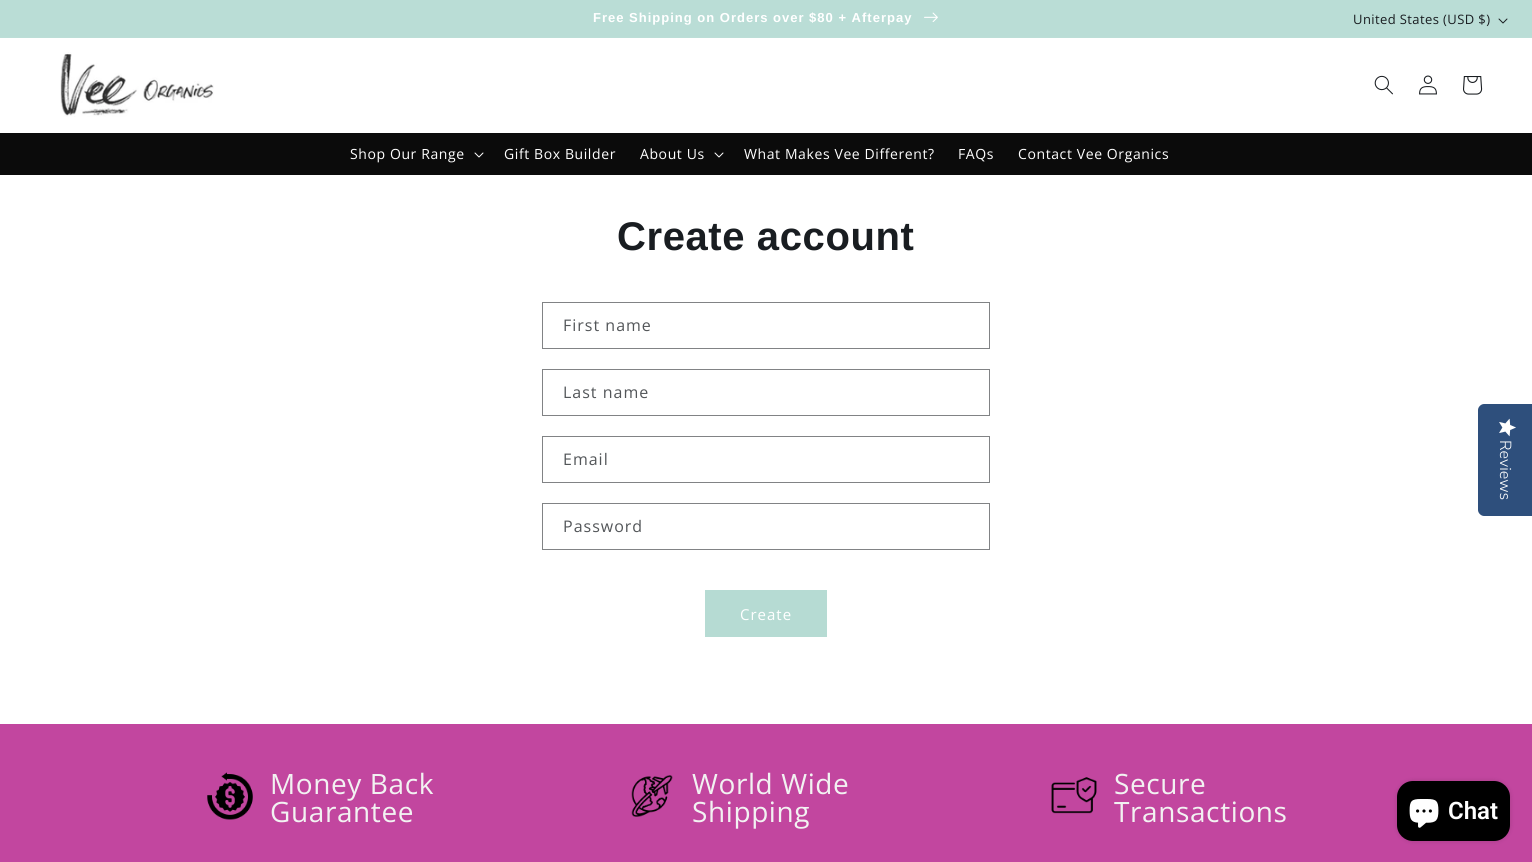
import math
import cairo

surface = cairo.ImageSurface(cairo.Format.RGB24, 1532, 862)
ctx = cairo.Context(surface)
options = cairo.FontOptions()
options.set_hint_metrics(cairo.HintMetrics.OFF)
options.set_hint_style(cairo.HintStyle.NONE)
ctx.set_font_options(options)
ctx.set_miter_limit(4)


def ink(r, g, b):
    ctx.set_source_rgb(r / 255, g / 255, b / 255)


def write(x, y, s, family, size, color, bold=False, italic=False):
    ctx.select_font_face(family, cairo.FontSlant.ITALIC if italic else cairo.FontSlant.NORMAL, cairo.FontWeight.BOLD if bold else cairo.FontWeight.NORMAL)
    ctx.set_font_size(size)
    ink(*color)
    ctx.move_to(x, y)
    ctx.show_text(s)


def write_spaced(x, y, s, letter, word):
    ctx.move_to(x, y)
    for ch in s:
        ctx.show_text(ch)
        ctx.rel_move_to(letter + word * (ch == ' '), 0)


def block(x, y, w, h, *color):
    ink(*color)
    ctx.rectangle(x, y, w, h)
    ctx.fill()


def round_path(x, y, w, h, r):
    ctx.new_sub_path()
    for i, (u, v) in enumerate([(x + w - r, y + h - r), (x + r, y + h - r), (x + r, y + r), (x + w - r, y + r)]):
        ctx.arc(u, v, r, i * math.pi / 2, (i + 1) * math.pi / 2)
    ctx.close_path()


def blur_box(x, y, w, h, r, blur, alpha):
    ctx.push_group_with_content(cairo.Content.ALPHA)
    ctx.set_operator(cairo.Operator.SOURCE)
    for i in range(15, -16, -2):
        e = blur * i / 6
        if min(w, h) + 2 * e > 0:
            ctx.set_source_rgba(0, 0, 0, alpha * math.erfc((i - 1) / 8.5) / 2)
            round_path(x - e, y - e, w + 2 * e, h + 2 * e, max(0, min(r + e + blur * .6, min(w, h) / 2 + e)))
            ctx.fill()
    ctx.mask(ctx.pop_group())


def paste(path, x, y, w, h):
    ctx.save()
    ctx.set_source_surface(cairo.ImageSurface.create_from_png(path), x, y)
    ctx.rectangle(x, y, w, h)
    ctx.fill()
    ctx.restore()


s1 = dict(family="Nunito Sans Light", size=16, color=(255, 255, 255))
s2 = dict(family="Roboto SemiBold", size=24, color=(255, 255, 255))

ink(255, 255, 255)
ctx.paint()
block(0, 37, 1532, 1, 188, 222, 215)
block(0, 0, 1532, 37, 186, 221, 214)
ctx.select_font_face("Arimo", cairo.FontSlant.NORMAL, cairo.FontWeight.BOLD)
ctx.set_font_size(13)
ink(255, 255, 255)
write_spaced(593, 22, "Free Shipping on Orders over $80 + Afterpay", 1, 0)
paste("pic1.png", 924, 12, 14, 10)
ctx.select_font_face("Open Sans")
ink(25, 29, 33)
write_spaced(1353, 24, "United States (USD $)", 0.4, 0)
paste("pic2.png", 1498, 18, 10, 6)
paste("pic3.png", 60, 52, 154, 65)
paste("pic4.png", 1374, 75, 19, 20)
paste("pic5.png", 1419, 75, 18, 20)
paste("pic6.png", 1463, 76, 20, 19)
block(0, 133, 1532, 42, 11, 11, 11)
ctx.set_font_size(14)
ink(255, 255, 255)
write_spaced(350, 159, "Shop Our Range", 0.6, 0)
paste("pic7.png", 474, 152, 10, 6)
write_spaced(504, 159, "Gift Box Builder", 0.6, 0)
write_spaced(640, 159, "About Us", 0.6, 0)
paste("pic7.png", 714, 152, 10, 6)
write_spaced(744, 159, "What Makes Vee Different?", 0.6, 0)
write_spaced(958, 159, "FAQs", 0.6, 0)
write_spaced(1018, 159, "Contact Vee Organics", 0.6, 0)
ctx.select_font_face("Arimo", cairo.FontSlant.NORMAL, cairo.FontWeight.BOLD)
ctx.set_font_size(40)
ink(25, 29, 33)
write_spaced(617, 250, "Create account", 0.6, 0)
ctx.rectangle(542.5, 302.5, 447, 46)
ink(129, 131, 133)
ctx.set_line_width(1)
ctx.stroke()
ctx.select_font_face("Open Sans")
ctx.set_font_size(16)
ink(83, 86, 89)
write_spaced(563, 331, "First name", 1, 0)
ctx.rectangle(542.5, 369.5, 447, 46)
ink(129, 131, 133)
ctx.stroke()
ink(83, 86, 89)
write_spaced(563, 398, "Last name", 1, 0)
ctx.rectangle(542.5, 436.5, 447, 46)
ink(129, 131, 133)
ctx.stroke()
ink(83, 86, 89)
write_spaced(563, 465, "Email", 1, 0)
ctx.rectangle(542.5, 503.5, 447, 46)
ink(129, 131, 133)
ctx.stroke()
ink(83, 86, 89)
write_spaced(563, 532, "Password", 1, 0)
block(705, 590, 122, 47, 182, 219, 211)
ctx.set_font_size(15)
ink(255, 255, 255)
write_spaced(740, 620, "Create", 1, 0)
ink(46, 79, 124)
ctx.new_path()
ctx.move_to(1532, 404)
ctx.line_to(1532, 516)
ctx.line_to(1484, 516)
ctx.curve_to(1481, 516, 1478, 513, 1478, 510)
ctx.line_to(1478, 410)
ctx.curve_to(1478, 407, 1481, 404, 1484, 404)
ctx.close_path()
ctx.fill()
paste("pic8.png", 1499, 418, 17, 19)
ctx.save()
ctx.translate(1500, 440)
ctx.rotate(90 * math.pi / 180)
write(0, 0, "Reviews", **s1)
ctx.restore()
block(0, 724, 1532, 138, 194, 70, 159)
paste("pic9.png", 207, 772, 46, 48)
ctx.select_font_face("Open Sans")
ctx.set_font_size(28)
ink(242, 242, 242)
write_spaced(270, 794, "Money Back", 0.6, 0)
write_spaced(270, 822, "Guarantee", 0.6, 0)
paste("pic10.png", 631, 775, 42, 42)
write_spaced(692, 794, "World Wide", 0.6, 0)
write_spaced(692, 822, "Shipping", 0.6, 0)
paste("pic11.png", 1051, 777, 46, 37)
write_spaced(1114, 794, "Secure", 0.6, 0)
write_spaced(1114, 822, "Transactions", 0.6, 0)
ink(0, 0, 0)
blur_box(1397, 781, 113, 60, 16, 2.5, 0.15)
ink(0, 0, 0)
round_path(1397, 781, 113, 60, 16)
ctx.fill()
paste("pic12.png", 1409, 799, 30, 29)
write(1448, 819, "Chat", **s2)
surface.write_to_png("screenshot.png")
